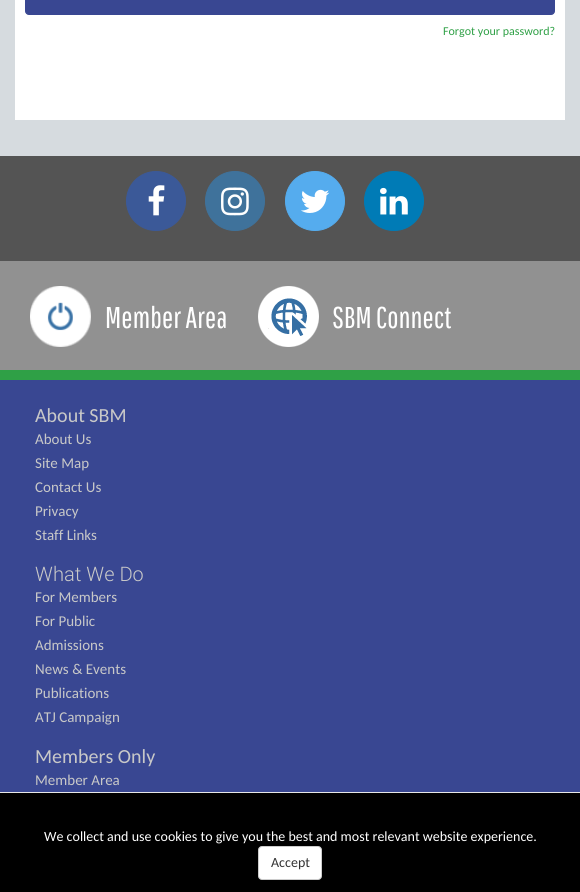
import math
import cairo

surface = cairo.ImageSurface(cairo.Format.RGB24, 580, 892)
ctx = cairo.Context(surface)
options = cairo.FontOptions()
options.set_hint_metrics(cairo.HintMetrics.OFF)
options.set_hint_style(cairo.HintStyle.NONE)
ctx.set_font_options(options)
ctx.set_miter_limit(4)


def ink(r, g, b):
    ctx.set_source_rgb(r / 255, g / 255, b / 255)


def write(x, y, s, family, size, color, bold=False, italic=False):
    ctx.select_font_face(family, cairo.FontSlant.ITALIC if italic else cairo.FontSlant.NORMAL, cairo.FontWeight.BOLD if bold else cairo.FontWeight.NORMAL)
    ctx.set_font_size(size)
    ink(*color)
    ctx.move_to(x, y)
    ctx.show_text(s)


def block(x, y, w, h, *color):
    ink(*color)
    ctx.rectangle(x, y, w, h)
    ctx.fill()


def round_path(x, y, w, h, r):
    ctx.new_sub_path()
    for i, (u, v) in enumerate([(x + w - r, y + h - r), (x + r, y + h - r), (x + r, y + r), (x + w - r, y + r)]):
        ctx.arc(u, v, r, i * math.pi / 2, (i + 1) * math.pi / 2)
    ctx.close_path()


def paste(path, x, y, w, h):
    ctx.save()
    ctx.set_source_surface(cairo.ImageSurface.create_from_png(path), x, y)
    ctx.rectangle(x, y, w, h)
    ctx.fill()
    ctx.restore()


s1 = dict(family="Carlito", size=12, color=(47, 160, 70))
s2 = dict(family="Carlito", size=14, color=(255, 255, 255))
s3 = dict(family="Carlito", size=14, color=(51, 51, 51))
s4 = dict(family="Carlito", size=20, color=(200, 200, 200))
s5 = dict(family="Carlito", size=15, color=(200, 200, 200))
s6 = dict(family="Roboto Light", size=20, color=(200, 200, 200))

ink(214, 219, 223)
ctx.paint()
block(15, 0, 550, 120, 255, 255, 255)
ink(57, 71, 146)
round_path(25.5, -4.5, 529, 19, 3.5)
ctx.fill_preserve()
ctx.set_line_width(1)
ctx.stroke()
write(443, 35, "Forgot your password?", **s1)
block(0, 793, 580, 99, 0, 0, 0)
block(0, 792, 580, 1, 231, 231, 231)
write(44, 841, "We collect and use cookies to give you the best and most relevant website experience.", **s2)
round_path(258.5, 846.5, 63, 33, 3.5)
ctx.fill_preserve()
ink(204, 204, 204)
ctx.stroke()
write(271, 867, "Accept", **s3)
block(0, 156, 580, 105, 84, 84, 84)
ink(59, 89, 152)
ctx.new_path()
ctx.arc(156, 201, 29.5, 0, 2 * math.pi)
ctx.fill_preserve()
ctx.stroke()
paste("pic1.png", 148, 185, 17, 31)
ink(63, 114, 155)
ctx.arc(235, 201, 29.5, 0, 2 * math.pi)
ctx.fill_preserve()
ctx.stroke()
paste("pic2.png", 221, 187, 28, 29)
ink(85, 172, 238)
ctx.arc(315, 201, 29.5, 0, 2 * math.pi)
ctx.fill_preserve()
ctx.stroke()
paste("pic3.png", 301, 189, 29, 24)
ink(0, 123, 182)
ctx.arc(394, 201, 29.5, 0, 2 * math.pi)
ctx.fill_preserve()
ctx.stroke()
paste("pic4.png", 380, 187, 28, 28)
block(0, 261, 580, 109, 145, 145, 145)
paste("pic5.png", 30, 286, 61, 61)
paste("pic6.png", 106, 305, 120, 24)
paste("pic7.png", 258, 286, 61, 61)
paste("pic8.png", 333, 306, 118, 23)
block(0, 380, 580, 412, 57, 71, 146)
block(0, 370, 580, 10, 47, 160, 70)
write(35, 422, "About SBM", **s4)
write(35, 444, "About Us", **s5)
write(35, 468, "Site Map", **s5)
write(35, 492, "Contact Us", **s5)
write(35, 516, "Privacy", **s5)
write(35, 540, "Staff Links", **s5)
write(35, 581, "What We Do", **s6)
write(35, 602, "For Members", **s5)
write(35, 626, "For Public", **s5)
write(35, 650, "Admissions", **s5)
write(35, 674, "News & Events", **s5)
write(35, 698, "Publications", **s5)
write(35, 722, "ATJ Campaign", **s5)
write(35, 763, "Members Only", **s4)
write(35, 785, "Member Area", **s5)
surface.write_to_png("screenshot.png")
